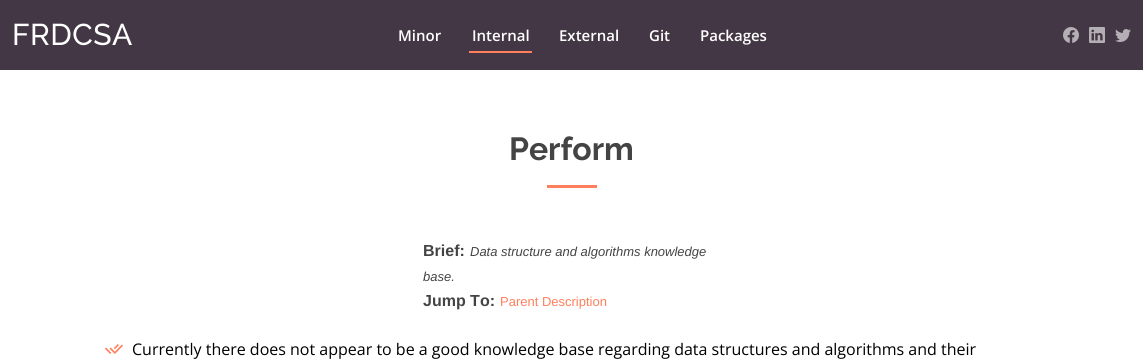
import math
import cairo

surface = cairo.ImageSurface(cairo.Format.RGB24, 1143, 360)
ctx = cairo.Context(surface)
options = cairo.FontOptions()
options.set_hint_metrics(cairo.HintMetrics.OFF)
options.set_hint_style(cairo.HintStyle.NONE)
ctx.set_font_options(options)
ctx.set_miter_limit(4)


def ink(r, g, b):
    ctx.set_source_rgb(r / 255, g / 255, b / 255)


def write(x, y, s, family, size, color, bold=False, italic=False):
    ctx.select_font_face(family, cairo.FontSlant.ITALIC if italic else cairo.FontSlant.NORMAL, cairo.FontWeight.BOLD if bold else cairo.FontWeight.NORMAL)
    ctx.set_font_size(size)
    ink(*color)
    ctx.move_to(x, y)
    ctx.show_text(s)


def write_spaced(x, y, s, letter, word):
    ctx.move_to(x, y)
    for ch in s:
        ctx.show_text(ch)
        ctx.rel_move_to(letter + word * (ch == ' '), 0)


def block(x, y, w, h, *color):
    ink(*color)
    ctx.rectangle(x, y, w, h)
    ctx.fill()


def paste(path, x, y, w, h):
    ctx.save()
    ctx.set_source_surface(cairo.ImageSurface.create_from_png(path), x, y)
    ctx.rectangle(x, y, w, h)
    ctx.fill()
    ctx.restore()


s1 = dict(family="Open Sans SemiBold", size=15, color=(255, 255, 255))
s2 = dict(family="Raleway", size=32, color=(68, 68, 68), bold=True)
s3 = dict(family="Liberation Sans", size=16, color=(68, 68, 68), bold=True)
s4 = dict(family="Liberation Sans", size=13, color=(68, 68, 68), italic=True)
s5 = dict(family="Liberation Sans", size=13, color=(255, 127, 93))
s6 = dict(family="Open Sans", size=16, color=(0, 0, 0))

ink(255, 255, 255)
ctx.paint()
block(0, 0, 1143, 70, 68, 55, 69)
ctx.select_font_face("Raleway Medium")
ctx.set_font_size(30)
ink(255, 255, 255)
write_spaced(12, 45, "FRDCSA", 0.5, 0)
write(398, 41, "Minor", **s1)
write(472, 41, "Internal", **s1)
block(469, 51, 63, 2, 255, 127, 93)
write(559, 41, "External", **s1)
write(649, 41, "Git", **s1)
write(700, 41, "Packages", **s1)
paste("pic1.png", 1063, 27, 16, 16)
paste("pic2.png", 1089, 27, 16, 16)
paste("pic3.png", 1115, 29, 16, 13)
write(509, 160, "Perform", **s2)
block(547, 185, 50, 3, 255, 127, 93)
write(423, 256, "Brief:", **s3)
write(470, 256, "Data structure and algorithms knowledge", **s4)
write(423, 281, "base.", **s4)
write(423, 306, "Jump To:", **s3)
write(500, 306, "Parent Description", **s5)
paste("pic4.png", 104, 344, 19, 10)
write(132, 355, "Currently there does not appear to be a good knowledge base regarding data structures and algorithms and their", **s6)
surface.write_to_png("screenshot.png")
